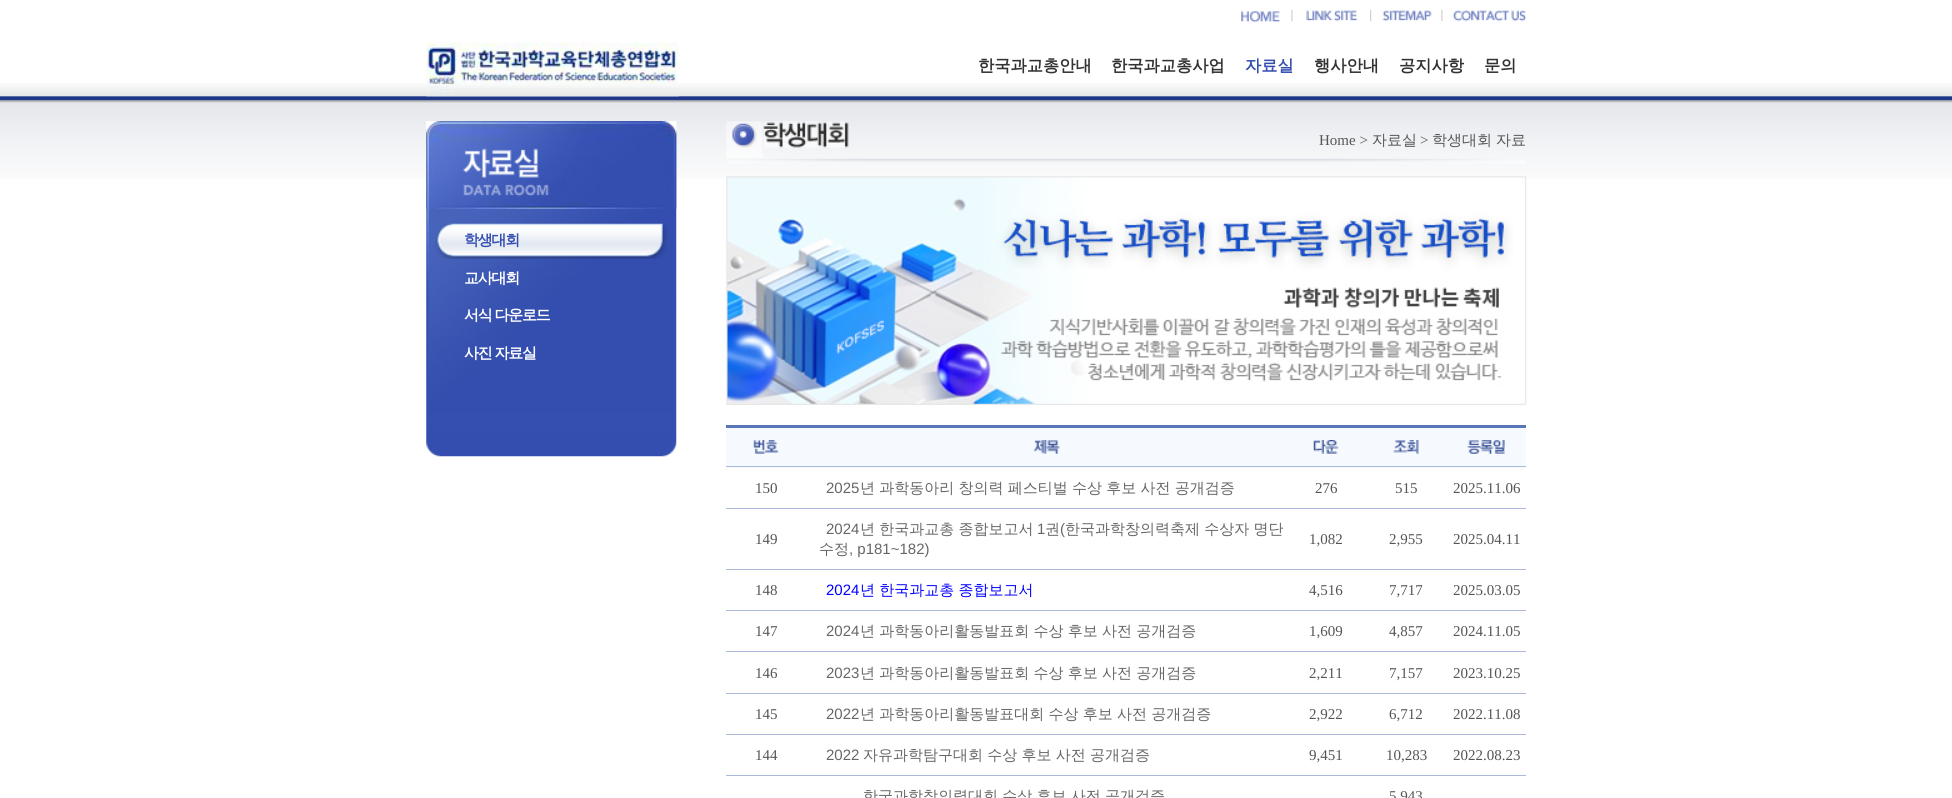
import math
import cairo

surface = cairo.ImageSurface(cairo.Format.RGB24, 1952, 798)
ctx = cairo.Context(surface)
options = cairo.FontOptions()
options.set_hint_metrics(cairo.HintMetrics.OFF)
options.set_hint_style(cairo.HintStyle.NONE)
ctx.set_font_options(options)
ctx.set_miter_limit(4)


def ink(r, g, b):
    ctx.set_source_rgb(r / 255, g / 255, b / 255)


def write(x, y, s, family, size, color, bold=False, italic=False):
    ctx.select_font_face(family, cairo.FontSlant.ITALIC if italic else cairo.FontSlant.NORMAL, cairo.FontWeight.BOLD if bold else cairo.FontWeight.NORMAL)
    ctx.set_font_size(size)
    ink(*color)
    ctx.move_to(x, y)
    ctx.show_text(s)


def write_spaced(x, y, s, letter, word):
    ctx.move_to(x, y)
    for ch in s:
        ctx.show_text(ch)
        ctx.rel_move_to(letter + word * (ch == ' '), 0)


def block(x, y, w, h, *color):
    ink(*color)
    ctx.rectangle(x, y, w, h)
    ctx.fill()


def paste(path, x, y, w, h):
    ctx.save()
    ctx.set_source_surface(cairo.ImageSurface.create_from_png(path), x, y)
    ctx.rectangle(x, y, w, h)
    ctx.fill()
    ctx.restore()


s1 = dict(family="WenQuanYi Zen Hei", size=16.25, color=(51, 51, 51), bold=True)
s2 = dict(family="WenQuanYi Zen Hei", size=16.25, color=(52, 78, 176), bold=True)
s3 = dict(family="Liberation Serif", size=15, color=(85, 85, 85))
s4 = dict(family="WenQuanYi Zen Hei Medium", size=15, color=(85, 85, 85))
s5 = dict(family="Liberation Sans", size=15, color=(102, 102, 102))
s6 = dict(family="WenQuanYi Zen Hei Medium", size=15, color=(102, 102, 102))
s7 = dict(family="Liberation Sans", size=15, color=(0, 0, 255))

ink(255, 255, 255)
ctx.paint()
paste("pic1.png", 0, 83, 1952, 96)
paste("pic2.png", 1241, 11, 39, 12)
paste("pic3.png", 1291, 10, 2, 12)
paste("pic4.png", 1306, 10, 52, 12)
paste("pic5.png", 1370, 10, 2, 12)
paste("pic6.png", 1382, 10, 50, 12)
paste("pic3.png", 1441, 10, 2, 12)
paste("pic7.png", 1453, 10, 74, 12)
paste("pic8.png", 426, 42, 253, 55)
write(978, 71, "한국과교총안내", **s1)
write(1111, 71, "한국과교총사업", **s1)
write(1245, 71, "자료실", **s2)
write(1314, 71, "행사안내", **s1)
write(1399, 71, "공지사항", **s1)
write(1484, 71, "문의", **s1)
paste("pic9.png", 426, 121, 251, 336)
paste("pic10.png", 426, 121, 251, 88)
paste("pic11.png", 435, 222, 233, 37)
ctx.set_font_size(15)
ink(52, 78, 176)
write_spaced(464, 245, "학생대회", -1.25, 0)
ink(255, 255, 255)
write_spaced(464, 283, "교사대회", -1.25, 0)
write_spaced(464, 320, "서식 다운로드", -1.25, -0.25)
write_spaced(464, 358, "사진 자료실", -1.25, -0.25)
paste("pic12.png", 726, 121, 37, 37)
paste("pic13.png", 763, 121, 86, 27)
write(1319, 145, "Home >", **s3)
write(1372, 145, "자료실", **s4)
write(1420, 145, ">", **s3)
write(1432, 145, "학생대회", **s4)
write(1496, 145, "자료", **s4)
paste("pic14.png", 727, 158, 799, 5)
paste("pic15.png", 726, 176, 801, 229)
block(726, 425, 800, 3, 89, 118, 182)
block(726, 428, 800, 40, 246, 249, 253)
block(726, 466, 800, 1, 172, 186, 218)
paste("pic16.png", 753, 440, 26, 14)
paste("pic17.png", 1033, 440, 27, 14)
paste("pic18.png", 1313, 440, 26, 14)
paste("pic19.png", 1393, 440, 26, 14)
paste("pic20.png", 1467, 440, 38, 14)
block(726, 508, 800, 1, 172, 186, 218)
write(755, 493, "150", **s3)
write(826, 493, "2025", **s5)
ctx.select_font_face("WenQuanYi Zen Hei Medium")
write_spaced(860, 493, "년 과학동아리 창의력 페스티벌 수상 후보 사전 공개검증", 0, -0.25)
write(1315, 493, "276", **s3)
write(1395, 493, "515", **s3)
write(1453, 493, "2025.11.06", **s3)
block(726, 569, 800, 1, 172, 186, 218)
write(755, 544, "149", **s3)
write(826, 534, "2024", **s5)
ctx.select_font_face("WenQuanYi Zen Hei Medium")
write_spaced(860, 534, "년 한국과교총 종합보고서", 0, -0.25)
write(1037, 534, "1", **s5)
write(1045, 534, "권", **s6)
write(1060, 534, "(", **s5)
ctx.select_font_face("WenQuanYi Zen Hei Medium")
write_spaced(1065, 534, "한국과학창의력축제 수상자 명단", 0, -0.25)
write(819, 554, "수정", **s6)
write(849, 554, ", p181~182)", **s5)
write(1309, 544, "1,082", **s3)
write(1389, 544, "2,955", **s3)
write(1453, 544, "2025.04.11", **s3)
block(726, 610, 800, 1, 172, 186, 218)
write(755, 595, "148", **s3)
write(826, 595, "2024", **s7)
ctx.select_font_face("WenQuanYi Zen Hei Medium")
write_spaced(860, 595, "년 한국과교총 종합보고서", 0, -0.25)
write(1309, 595, "4,516", **s3)
write(1389, 595, "7,717", **s3)
write(1453, 595, "2025.03.05", **s3)
block(726, 651, 800, 1, 172, 186, 218)
write(755, 636, "147", **s3)
write(826, 636, "2024", **s5)
ctx.select_font_face("WenQuanYi Zen Hei Medium")
write_spaced(860, 636, "년 과학동아리활동발표회 수상 후보 사전 공개검증", 0, -0.25)
write(1309, 636, "1,609", **s3)
write(1389, 636, "4,857", **s3)
write(1453, 636, "2024.11.05", **s3)
block(726, 693, 800, 1, 172, 186, 218)
write(755, 678, "146", **s3)
write(826, 678, "2023", **s5)
ctx.select_font_face("WenQuanYi Zen Hei Medium")
write_spaced(860, 678, "년 과학동아리활동발표회 수상 후보 사전 공개검증", 0, -0.25)
write(1309, 678, "2,211", **s3)
write(1389, 678, "7,157", **s3)
write(1453, 678, "2023.10.25", **s3)
block(726, 734, 800, 1, 172, 186, 218)
write(755, 719, "145", **s3)
write(826, 719, "2022", **s5)
ctx.select_font_face("WenQuanYi Zen Hei Medium")
write_spaced(860, 719, "년 과학동아리활동발표대회 수상 후보 사전 공개검증", 0, -0.25)
write(1309, 719, "2,922", **s3)
write(1389, 719, "6,712", **s3)
write(1453, 719, "2022.11.08", **s3)
block(726, 775, 800, 1, 172, 186, 218)
write(755, 760, "144", **s3)
write(826, 760, "2022", **s5)
ctx.select_font_face("WenQuanYi Zen Hei Medium")
write_spaced(863, 760, "자유과학탐구대회 수상 후보 사전 공개검증", 0, -0.25)
write(1309, 760, "9,451", **s3)
write(1386, 760, "10,283", **s3)
write(1453, 760, "2022.08.23", **s3)
ctx.select_font_face("WenQuanYi Zen Hei Medium")
ink(102, 102, 102)
write_spaced(863, 801, "한국과학창의력대회 수상 후보 사전 공개검증", 0, -0.25)
write(1389, 801, "5,943", **s3)
surface.write_to_png("screenshot.png")
